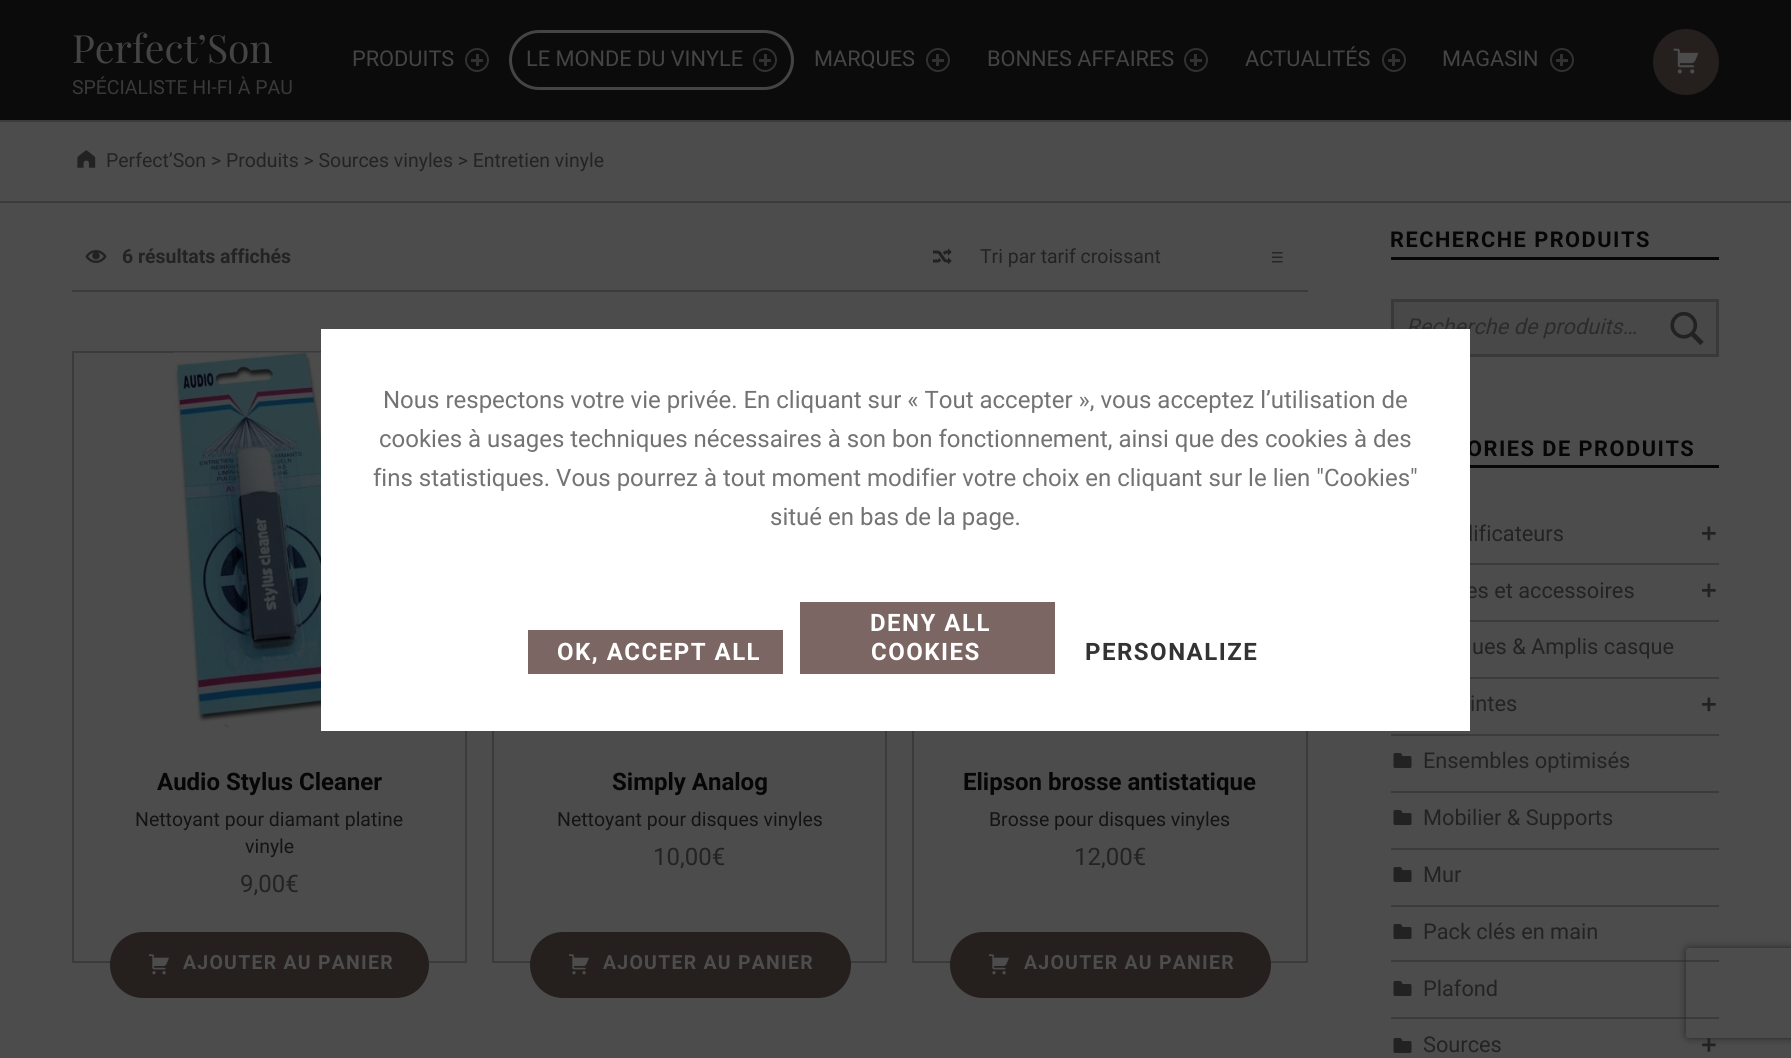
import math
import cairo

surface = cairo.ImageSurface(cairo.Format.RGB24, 1791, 1058)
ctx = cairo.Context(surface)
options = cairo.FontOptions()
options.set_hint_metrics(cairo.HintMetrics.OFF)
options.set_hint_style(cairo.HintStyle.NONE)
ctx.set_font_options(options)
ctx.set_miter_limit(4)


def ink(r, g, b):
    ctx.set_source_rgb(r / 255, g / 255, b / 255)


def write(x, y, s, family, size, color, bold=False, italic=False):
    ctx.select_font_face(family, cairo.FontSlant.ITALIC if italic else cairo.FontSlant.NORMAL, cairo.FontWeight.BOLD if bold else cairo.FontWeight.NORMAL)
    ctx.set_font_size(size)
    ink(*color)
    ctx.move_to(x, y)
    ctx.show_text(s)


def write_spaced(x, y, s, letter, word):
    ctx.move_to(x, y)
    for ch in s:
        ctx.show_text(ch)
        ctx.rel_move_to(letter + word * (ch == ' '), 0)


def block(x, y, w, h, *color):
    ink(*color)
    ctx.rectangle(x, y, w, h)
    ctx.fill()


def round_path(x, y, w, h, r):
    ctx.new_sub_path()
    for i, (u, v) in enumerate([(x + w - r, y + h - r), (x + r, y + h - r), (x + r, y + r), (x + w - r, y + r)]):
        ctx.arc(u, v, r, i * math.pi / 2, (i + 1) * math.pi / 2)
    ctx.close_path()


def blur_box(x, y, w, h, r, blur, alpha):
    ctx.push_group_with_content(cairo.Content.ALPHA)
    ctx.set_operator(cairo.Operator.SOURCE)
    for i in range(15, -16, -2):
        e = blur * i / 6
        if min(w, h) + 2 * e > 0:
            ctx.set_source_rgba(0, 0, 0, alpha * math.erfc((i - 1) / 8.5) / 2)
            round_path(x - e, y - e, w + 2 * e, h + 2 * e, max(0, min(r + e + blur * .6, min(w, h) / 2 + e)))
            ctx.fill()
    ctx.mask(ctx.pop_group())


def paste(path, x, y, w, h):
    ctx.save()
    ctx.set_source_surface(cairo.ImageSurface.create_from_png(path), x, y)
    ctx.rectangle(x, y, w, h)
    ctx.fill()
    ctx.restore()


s1 = dict(family="Playfair Display", size=39, color=(68, 68, 68))
s2 = dict(family="Roboto", size=19.45, color=(57, 57, 57))
s3 = dict(family="Roboto", size=21.75, color=(68, 68, 68))
s4 = dict(family="Roboto", size=19.45, color=(35, 35, 35))
s5 = dict(family="Roboto", size=19.45, color=(35, 35, 35), bold=True)
s6 = dict(family="Roboto", size=24, color=(6, 6, 6), bold=True)
s7 = dict(family="Roboto", size=19.45, color=(20, 20, 20))
s8 = dict(family="Roboto", size=24, color=(35, 35, 35))
s9 = dict(family="Roboto", size=21.75, color=(44, 44, 44), italic=True)
s10 = dict(family="Roboto", size=21.75, color=(35, 35, 35))
s11 = dict(family="Roboto", size=24, color=(115, 115, 115))

ink(76, 76, 76)
ctx.paint()
block(0, 0, 1791, 120, 11, 11, 11)
write(72, 63, "Perfect’Son", **s1)
write(72, 94, "SPÉCIALISTE HI-FI À PAU", **s2)
write(352, 66, "PRODUITS", **s3)
ctx.new_path()
ctx.arc(477, 60, 11, 0, 2 * math.pi)
ink(49, 49, 49)
ctx.stroke()
block(471, 59, 12, 3, 49, 49, 49)
block(476, 54, 3, 12, 49, 49, 49)
round_path(510.5, 31.5, 282, 57, 28.5)
ink(68, 68, 68)
ctx.set_line_width(3)
ctx.stroke()
write(526, 66, "LE MONDE DU VINYLE", **s3)
ctx.new_path()
ctx.arc(765, 60, 11, 0, 2 * math.pi)
ink(49, 49, 49)
ctx.set_line_width(2)
ctx.stroke()
block(759, 59, 12, 3, 49, 49, 49)
block(764, 54, 3, 12, 49, 49, 49)
write(814, 66, "MARQUES", **s3)
ctx.new_path()
ctx.arc(938, 60, 11, 0, 2 * math.pi)
ink(49, 49, 49)
ctx.stroke()
block(932, 59, 12, 3, 49, 49, 49)
block(936, 54, 3, 12, 49, 49, 49)
write(987, 66, "BONNES AFFAIRES", **s3)
ctx.new_path()
ctx.arc(1196, 60, 11, 0, 2 * math.pi)
ink(49, 49, 49)
ctx.stroke()
block(1190, 59, 12, 3, 49, 49, 49)
block(1194, 54, 3, 12, 49, 49, 49)
write(1245, 66, "ACTUALITÉS", **s3)
ctx.new_path()
ctx.arc(1394, 60, 11, 0, 2 * math.pi)
ink(49, 49, 49)
ctx.stroke()
block(1388, 59, 12, 3, 49, 49, 49)
block(1392, 54, 3, 12, 49, 49, 49)
write(1442, 66, "MAGASIN", **s3)
ctx.new_path()
ctx.arc(1562, 60, 11, 0, 2 * math.pi)
ink(49, 49, 49)
ctx.stroke()
block(1556, 59, 12, 3, 49, 49, 49)
block(1560, 54, 3, 12, 49, 49, 49)
ink(37, 31, 30)
ctx.arc(1686, 62, 33, 0, 2 * math.pi)
ctx.fill()
paste("pic1.png", 1673, 48, 26, 26)
block(0, 120, 1791, 2, 59, 59, 59)
block(0, 201, 1791, 2, 59, 59, 59)
paste("pic2.png", 77, 150, 19, 18)
write(106, 167, "Perfect’Son > Produits > Sources vinyles > Entretien vinyle", **s4)
block(72, 290, 1236, 2, 59, 59, 59)
paste("pic3.png", 85, 250, 22, 13)
write(122, 263, "6 résultats affichés", **s5)
paste("pic4.png", 933, 248, 19, 17)
paste("pic5.png", 1272, 252, 11, 11)
write(980, 263, "Tri par tarif croissant", **s4)
ctx.rectangle(73, 352, 393, 610)
ink(59, 59, 59)
ctx.stroke()
paste("pic6.png", 174, 352, 147, 376)
write(157, 790, "Audio Stylus Cleaner", **s6)
write(135, 826, "Nettoyant pour diamant platine", **s7)
write(245, 853, "vinyle", **s7)
write(240, 892, "9,00€", **s8)
ink(37, 31, 30)
round_path(110, 932, 319, 66, 33)
ctx.fill()
paste("pic7.png", 148, 954, 21, 21)
ctx.select_font_face("Roboto", cairo.FontSlant.NORMAL, cairo.FontWeight.BOLD)
ctx.set_font_size(19.45)
ink(77, 77, 77)
write_spaced(183, 969, "AJOUTER AU PANIER", 1.25, 0)
ctx.rectangle(493, 352, 393, 610)
ink(59, 59, 59)
ctx.stroke()
write(612, 790, "Simply Analog", **s6)
write(557, 826, "Nettoyant pour disques vinyles", **s7)
write(653, 865, "10,00€", **s8)
ink(37, 31, 30)
round_path(530, 932, 321, 66, 33)
ctx.fill()
paste("pic7.png", 568, 954, 21, 21)
ctx.select_font_face("Roboto", cairo.FontSlant.NORMAL, cairo.FontWeight.BOLD)
ctx.set_font_size(19.45)
ink(77, 77, 77)
write_spaced(603, 969, "AJOUTER AU PANIER", 1.25, 0)
ctx.rectangle(913, 352, 394, 610)
ink(59, 59, 59)
ctx.stroke()
write(963, 790, "Elipson brosse antistatique", **s6)
write(989, 826, "Brosse pour disques vinyles", **s7)
write(1074, 865, "12,00€", **s8)
ink(37, 31, 30)
round_path(950, 932, 321, 66, 33)
ctx.fill()
paste("pic7.png", 988, 954, 21, 21)
ctx.select_font_face("Roboto", cairo.FontSlant.NORMAL, cairo.FontWeight.BOLD)
ctx.set_font_size(19.45)
ink(77, 77, 77)
write_spaced(1024, 969, "AJOUTER AU PANIER", 1.25, 0)
block(1391, 257, 328, 3, 6, 6, 6)
ctx.set_font_size(21.75)
write_spaced(1390, 247, "RECHERCHE PRODUITS", 1.5, 0)
ink(72, 72, 72)
ctx.rectangle(1392.5, 300.5, 325, 55)
ctx.fill_preserve()
ink(57, 57, 57)
ctx.set_line_width(3)
ctx.stroke()
write(1406, 334, "Recherche de produits…", **s9)
paste("pic8.png", 1670, 311, 34, 34)
block(1470, 465, 249, 3, 6, 6, 6)
ctx.select_font_face("Roboto", cairo.FontSlant.NORMAL, cairo.FontWeight.BOLD)
write_spaced(1467, 456, "ORIES DE PRODUITS", 1.5, 0)
write(1468, 541, "lificateurs", **s10)
paste("pic9.png", 1702, 526, 14, 15)
block(1470, 563, 249, 2, 59, 59, 59)
write(1466, 598, "es et accessoires", **s10)
paste("pic9.png", 1702, 583, 14, 15)
block(1470, 620, 249, 2, 59, 59, 59)
write(1472, 654, "ues & Amplis casque", **s10)
block(1470, 677, 249, 2, 59, 59, 59)
write(1470, 711, "intes", **s10)
paste("pic9.png", 1702, 697, 14, 15)
block(1391, 734, 328, 2, 59, 59, 59)
paste("pic10.png", 1393, 753, 19, 15)
write(1423, 768, "Ensembles optimisés", **s10)
block(1391, 791, 328, 2, 59, 59, 59)
paste("pic10.png", 1393, 810, 19, 15)
write(1423, 825, "Mobilier & Supports", **s10)
block(1391, 848, 328, 2, 59, 59, 59)
paste("pic10.png", 1393, 867, 19, 15)
write(1423, 882, "Mur", **s10)
block(1391, 905, 328, 2, 59, 59, 59)
paste("pic10.png", 1393, 924, 19, 15)
write(1423, 939, "Pack clés en main", **s10)
block(1391, 960, 328, 2, 59, 59, 59)
paste("pic10.png", 1393, 981, 19, 15)
write(1423, 996, "Plafond", **s10)
block(1391, 1017, 328, 2, 59, 59, 59)
paste("pic10.png", 1393, 1038, 19, 15)
write(1423, 1052, "Sources", **s10)
paste("pic11.png", 1702, 1038, 14, 14)
block(321, 329, 1149, 402, 255, 255, 255)
write(383, 408, "Nous respectons votre vie privée. En cliquant sur « Tout accepter », vous acceptez l’utilisation de", **s11)
write(379, 447, "cookies à usages techniques nécessaires à son bon fonctionnement, ainsi que des cookies à des", **s11)
write(373, 486, "fins statistiques. Vous pourrez à tout moment modifier votre choix en cliquant sur le lien \"Cookies\"", **s11)
write(770, 525, "situé en bas de la page.", **s11)
block(528, 630, 255, 44, 124, 102, 99)
ctx.select_font_face("Roboto", cairo.FontSlant.NORMAL, cairo.FontWeight.BOLD)
ink(255, 255, 255)
write_spaced(557, 660, "OK, ACCEPT ALL", 1.5, 0)
block(800, 602, 255, 72, 124, 102, 99)
ink(255, 255, 255)
write_spaced(870, 631, "DENY ALL", 1.5, 0)
write_spaced(871, 660, "COOKIES", 1.5, 0)
ink(51, 51, 51)
write_spaced(1085, 660, "PERSONALIZE", 1.5, 0)
ctx.save()
ctx.set_fill_rule(cairo.FillRule.EVEN_ODD)
ctx.new_path()
ctx.move_to(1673, 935)
ctx.line_to(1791, 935)
ctx.line_to(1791, 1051)
ctx.line_to(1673, 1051)
ctx.close_path()
ctx.move_to(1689, 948)
ctx.line_to(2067, 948)
ctx.curve_to(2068.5, 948, 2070, 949.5, 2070, 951)
ctx.line_to(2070, 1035)
ctx.curve_to(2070, 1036.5, 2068.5, 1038, 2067, 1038)
ctx.line_to(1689, 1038)
ctx.curve_to(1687.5, 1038, 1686, 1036.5, 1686, 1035)
ctx.line_to(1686, 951)
ctx.curve_to(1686, 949.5, 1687.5, 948, 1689, 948)
ctx.close_path()
ctx.clip()
ink(38, 38, 38)
blur_box(1686, 948, 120, 90, 3, 4, 1)
ctx.restore()
surface.write_to_png("screenshot.png")
